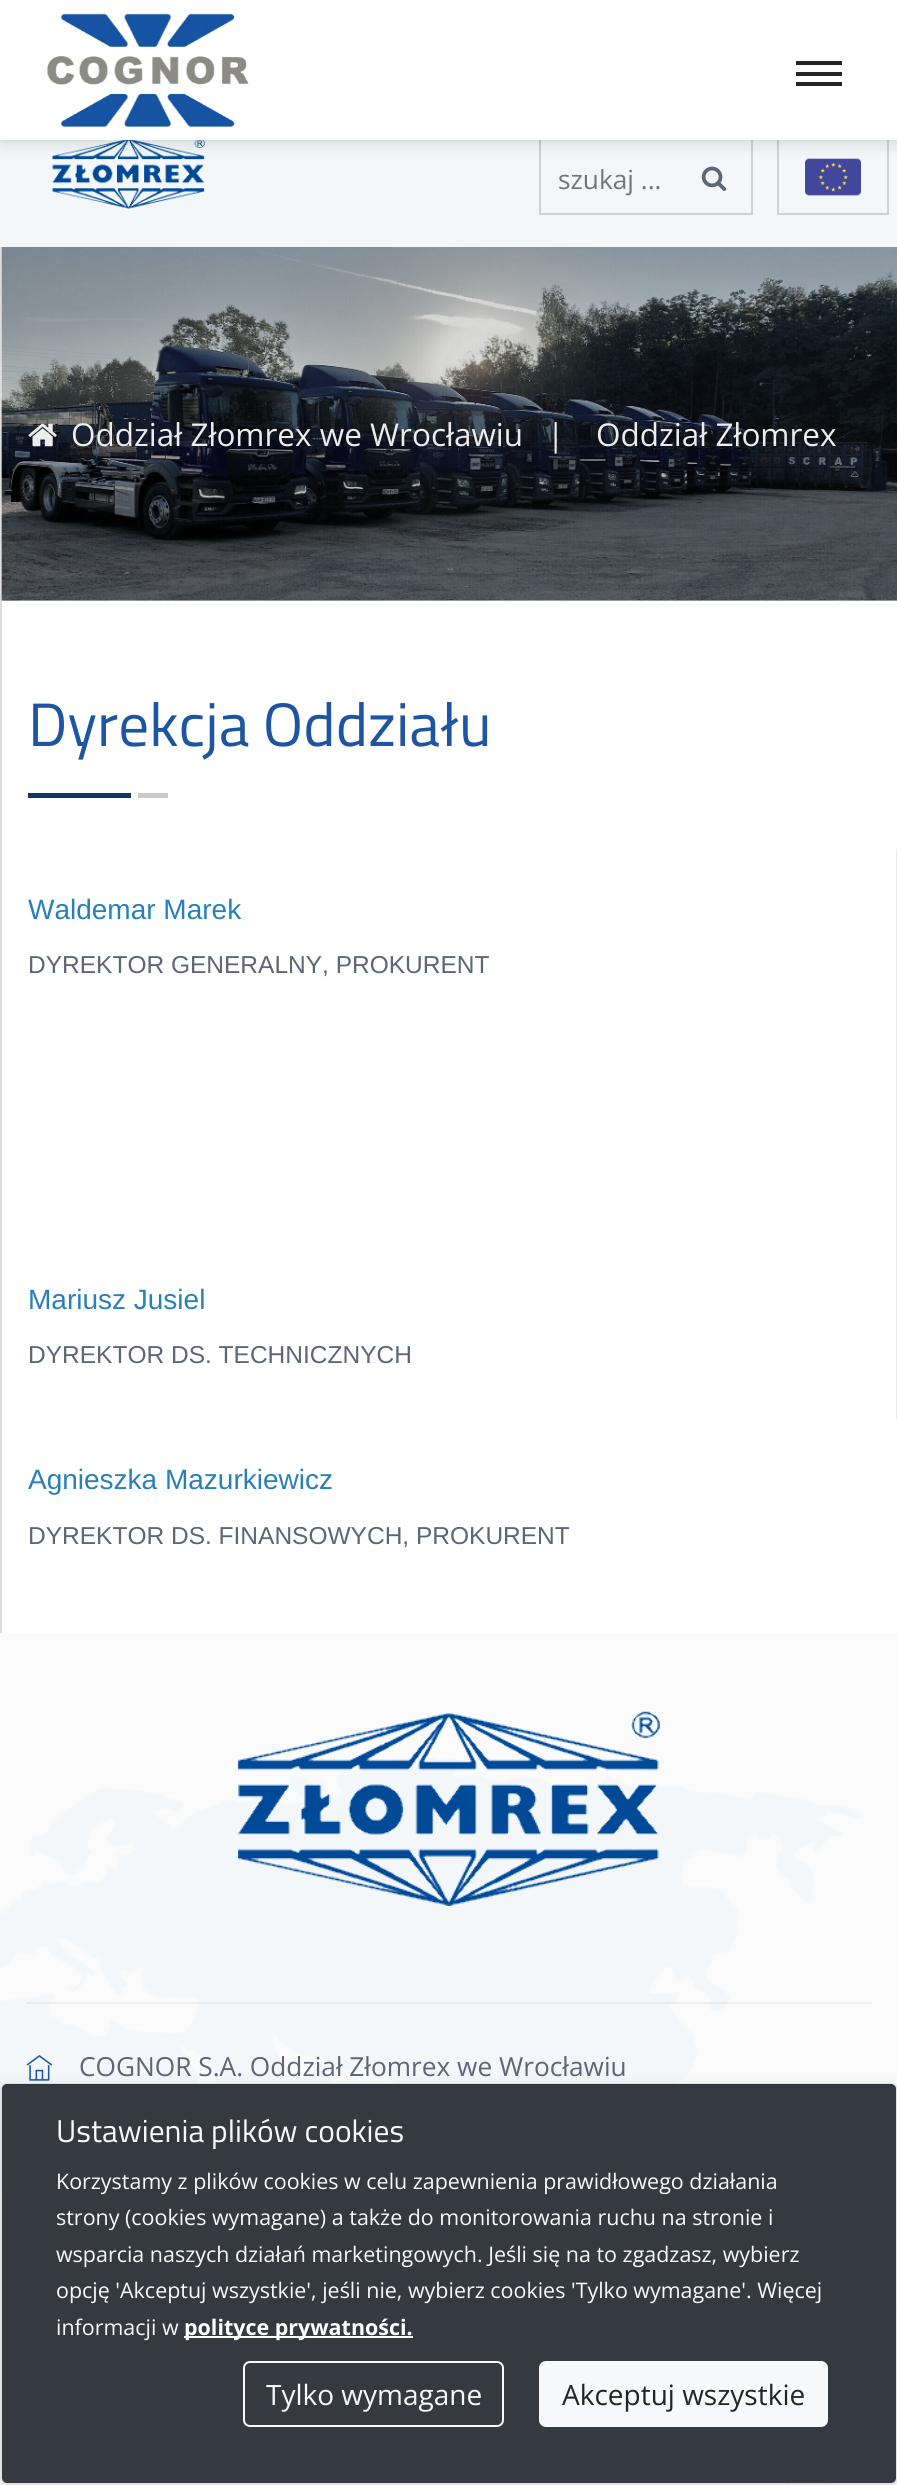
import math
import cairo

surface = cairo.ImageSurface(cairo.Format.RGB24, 897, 2485)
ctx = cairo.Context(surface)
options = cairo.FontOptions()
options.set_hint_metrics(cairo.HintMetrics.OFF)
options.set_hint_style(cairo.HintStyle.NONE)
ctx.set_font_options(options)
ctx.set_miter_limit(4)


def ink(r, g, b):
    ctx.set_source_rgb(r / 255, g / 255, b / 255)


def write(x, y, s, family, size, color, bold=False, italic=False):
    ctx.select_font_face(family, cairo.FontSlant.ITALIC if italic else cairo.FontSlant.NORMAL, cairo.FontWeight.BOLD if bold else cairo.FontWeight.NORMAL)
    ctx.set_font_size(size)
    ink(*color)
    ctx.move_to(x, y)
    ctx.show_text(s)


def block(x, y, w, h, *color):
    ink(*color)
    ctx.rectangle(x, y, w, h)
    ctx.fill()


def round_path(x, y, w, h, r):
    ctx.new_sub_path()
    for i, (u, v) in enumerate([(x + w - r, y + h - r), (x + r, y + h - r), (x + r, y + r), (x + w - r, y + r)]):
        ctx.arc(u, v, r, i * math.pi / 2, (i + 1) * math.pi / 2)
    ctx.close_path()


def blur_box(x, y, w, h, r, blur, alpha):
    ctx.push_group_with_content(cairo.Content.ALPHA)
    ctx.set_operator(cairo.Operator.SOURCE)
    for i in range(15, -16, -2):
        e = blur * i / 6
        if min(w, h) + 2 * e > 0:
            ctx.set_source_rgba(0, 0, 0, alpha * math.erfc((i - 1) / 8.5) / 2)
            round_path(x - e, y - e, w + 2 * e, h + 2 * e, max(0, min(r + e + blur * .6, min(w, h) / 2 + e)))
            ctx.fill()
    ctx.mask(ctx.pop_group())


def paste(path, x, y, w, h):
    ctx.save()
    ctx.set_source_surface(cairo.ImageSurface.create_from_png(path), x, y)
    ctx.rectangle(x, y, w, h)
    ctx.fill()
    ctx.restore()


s1 = dict(family="Open Sans", size=26.25, color=(117, 117, 117))
s2 = dict(family="Open Sans", size=31.5, color=(236, 236, 236))
s3 = dict(family="Titillium Web", size=61.25, color=(29, 85, 162))
s4 = dict(family="Liberation Sans", size=28, color=(41, 128, 185))
s5 = dict(family="Liberation Sans", size=24.5, color=(93, 101, 118))
s6 = dict(family="Open Sans", size=26.25, color=(93, 101, 118))
s7 = dict(family="Titillium Web", size=31.5, color=(248, 249, 250))
s8 = dict(family="Open Sans", size=21.45, color=(248, 249, 250))
s9 = dict(family="Open Sans", size=21.45, color=(255, 255, 255), bold=True)
s10 = dict(family="Open Sans", size=28, color=(248, 249, 250))
s11 = dict(family="Open Sans", size=28, color=(33, 37, 41))

ink(255, 255, 255)
ctx.paint()
block(0, 140, 897, 107, 243, 247, 249)
paste("pic2.png", 52, 140, 153, 69)
ctx.rectangle(540, 139, 212, 75)
ink(209, 209, 209)
ctx.stroke()
paste("pic3.png", 701, 166, 26, 25)
ctx.rectangle(778, 139, 110, 75)
ctx.stroke()
paste("pic4.png", 805, 158, 56, 38)
ink(0, 0, 0)
blur_box(0, 0, 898, 140, 0, 9, 0.2)
block(0, 0, 897, 140, 255, 255, 255)
paste("pic1.png", 47, 13, 202, 114)
block(796, 72, 46, 4, 38, 38, 38)
block(796, 61, 46, 4, 38, 38, 38)
block(796, 82, 46, 4, 38, 38, 38)
write(558, 189, "szukaj ...", **s1)
block(0, 247, 2, 1386, 221, 221, 221)
paste("pic5.png", 1, 247, 896, 354)
paste("pic6.png", 1, 247, 896, 354)
paste("pic7.png", 28, 423, 29, 24)
write(71, 446, "Oddział Złomrex we Wrocławiu", **s2)
write(547, 446, "|", **s2)
write(596, 446, "Oddział Złomrex", **s2)
write(28, 746, "Dyrekcja Oddziału", **s3)
block(28, 793, 103, 5, 17, 53, 102)
block(138, 793, 30, 5, 202, 202, 202)
write(28, 919, "Waldemar Marek", **s4)
write(28, 973, "DYREKTOR GENERALNY, PROKURENT", **s5)
block(896, 849, 1, 570, 234, 234, 234)
write(28, 1309, "Mariusz Jusiel", **s4)
write(28, 1363, "DYREKTOR DS. TECHNICZNYCH", **s5)
write(28, 1489, "Agnieszka Mazurkiewicz", **s4)
write(28, 1544, "DYREKTOR DS. FINANSOWYCH, PROKURENT", **s5)
block(0, 1633, 897, 852, 251, 251, 251)
paste("pic8.png", 0, 1756, 897, 729)
paste("pic9.png", 238, 1711, 422, 195)
ctx.set_source_rgba(0.478, 0.478, 0.478, 0.1)
ctx.rectangle(26, 2002, 846, 2)
ctx.fill()
paste("pic10.png", 26, 2055, 27, 26)
write(79, 2076, "COGNOR S.A. Oddział Złomrex we Wrocławiu", **s6)
ctx.save()
ctx.set_fill_rule(cairo.FillRule.EVEN_ODD)
ctx.new_path()
ctx.move_to(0, 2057)
ctx.line_to(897, 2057)
ctx.line_to(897, 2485)
ctx.line_to(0, 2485)
ctx.close_path()
ctx.move_to(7, 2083)
ctx.line_to(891, 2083)
ctx.curve_to(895, 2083, 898, 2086, 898, 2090)
ctx.line_to(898, 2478)
ctx.curve_to(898, 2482, 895, 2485, 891, 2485)
ctx.line_to(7, 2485)
ctx.curve_to(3, 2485, 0, 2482, 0, 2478)
ctx.line_to(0, 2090)
ctx.curve_to(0, 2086, 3, 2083, 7, 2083)
ctx.close_path()
ctx.clip()
ink(0, 0, 0)
blur_box(0, 2090, 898, 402, 7, 10.5, 0.1)
ctx.restore()
ink(52, 58, 64)
round_path(2, 2084, 894, 399, 5)
ctx.fill()
round_path(1, 2084, 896, 400, 6)
ctx.set_source_rgba(0, 0, 0, 0.1)
ctx.stroke()
write(56, 2142, "Ustawienia plików cookies", **s7)
write(56, 2189, "Korzystamy z plików cookies w celu zapewnienia prawidłowego działania", **s8)
write(56, 2225, "strony (cookies wymagane) a także do monitorowania ruchu na stronie i", **s8)
write(56, 2262, "wsparcia naszych działań marketingowych. Jeśli się na to zgadzasz, wybierz", **s8)
write(56, 2298, "opcję 'Akceptuj wszystkie', jeśli nie, wybierz cookies 'Tylko wymagane'. Więcej", **s8)
write(56, 2335, "informacji w", **s8)
block(184, 2336, 229, 2, 255, 255, 255)
write(184, 2335, "polityce prywatności.", **s9)
round_path(244, 2362, 259, 64, 6)
ink(248, 249, 250)
ctx.stroke()
write(266, 2405, "Tylko wymagane", **s10)
round_path(540, 2362, 287, 64, 6)
ctx.fill_preserve()
ctx.stroke()
write(562, 2405, "Akceptuj wszystkie", **s11)
surface.write_to_png("screenshot.png")
